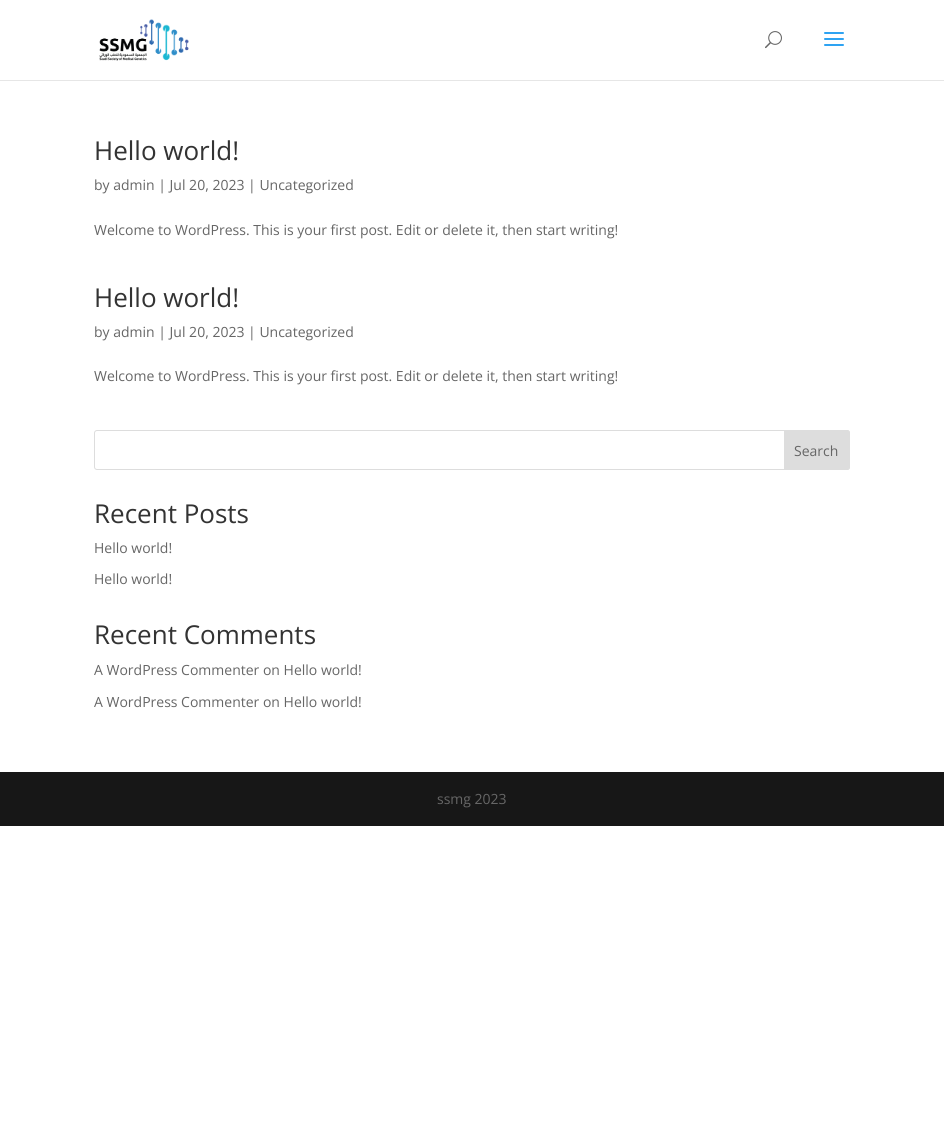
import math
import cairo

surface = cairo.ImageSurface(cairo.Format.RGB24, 944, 1138)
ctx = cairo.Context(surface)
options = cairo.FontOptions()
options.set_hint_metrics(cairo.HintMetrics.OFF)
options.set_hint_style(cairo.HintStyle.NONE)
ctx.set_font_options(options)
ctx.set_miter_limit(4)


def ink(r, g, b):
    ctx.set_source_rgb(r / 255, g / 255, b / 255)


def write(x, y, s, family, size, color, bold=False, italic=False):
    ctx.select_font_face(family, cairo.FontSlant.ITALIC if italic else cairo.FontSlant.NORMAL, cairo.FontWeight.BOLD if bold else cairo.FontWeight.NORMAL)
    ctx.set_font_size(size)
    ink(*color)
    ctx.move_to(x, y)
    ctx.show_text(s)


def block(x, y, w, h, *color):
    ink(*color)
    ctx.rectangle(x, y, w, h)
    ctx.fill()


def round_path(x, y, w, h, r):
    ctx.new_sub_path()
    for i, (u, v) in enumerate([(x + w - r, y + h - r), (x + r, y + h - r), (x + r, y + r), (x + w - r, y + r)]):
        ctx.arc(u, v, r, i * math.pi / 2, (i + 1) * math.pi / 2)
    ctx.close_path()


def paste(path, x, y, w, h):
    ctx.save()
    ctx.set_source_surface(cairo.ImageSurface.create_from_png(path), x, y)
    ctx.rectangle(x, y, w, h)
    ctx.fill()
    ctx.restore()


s1 = dict(family="Open Sans", size=26, color=(51, 51, 51))
s2 = dict(family="Open Sans", size=14, color=(102, 102, 102))

ink(255, 255, 255)
ctx.paint()
block(0, 80, 944, 1, 230, 230, 230)
paste("pic1.png", 99, 19, 90, 42)
paste("pic2.png", 765, 31, 17, 18)
paste("pic3.png", 824, 32, 20, 14)
write(94, 160, "Hello world!", **s1)
write(94, 190, "by admin | Jul 20, 2023 | Uncategorized", **s2)
write(94, 235, "Welcome to WordPress. This is your first post. Edit or delete it, then start writing!", **s2)
write(94, 307, "Hello world!", **s1)
write(94, 337, "by admin | Jul 20, 2023 | Uncategorized", **s2)
write(94, 381, "Welcome to WordPress. This is your first post. Edit or delete it, then start writing!", **s2)
round_path(94.5, 430.5, 755, 39, 2.5)
ink(221, 221, 221)
ctx.set_line_width(1)
ctx.stroke()
ctx.new_path()
ctx.move_to(784.5, 430.5)
ctx.line_to(847, 430.5)
ctx.curve_to(848.5, 430.5, 849.5, 431.5, 849.5, 433)
ctx.line_to(849.5, 467)
ctx.curve_to(849.5, 468.5, 848.5, 469.5, 847, 469.5)
ctx.line_to(784.5, 469.5)
ctx.close_path()
ctx.fill_preserve()
ctx.stroke()
write(794, 456, "Search", **s2)
write(94, 523, "Recent Posts", **s1)
write(94, 553, "Hello world!", **s2)
write(94, 584, "Hello world!", **s2)
write(94, 644, "Recent Comments", **s1)
write(94, 675, "A WordPress Commenter on Hello world!", **s2)
write(94, 707, "A WordPress Commenter on Hello world!", **s2)
block(0, 772, 944, 54, 23, 23, 23)
write(437, 804, "ssmg 2023", **s2)
surface.write_to_png("screenshot.png")
